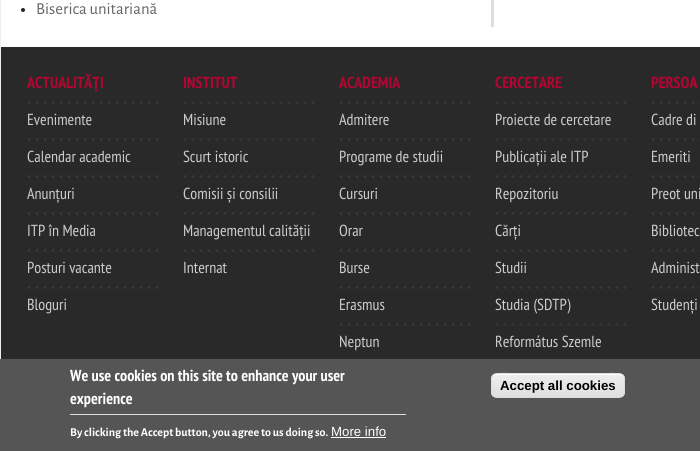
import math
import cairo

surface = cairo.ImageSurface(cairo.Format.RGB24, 700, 451)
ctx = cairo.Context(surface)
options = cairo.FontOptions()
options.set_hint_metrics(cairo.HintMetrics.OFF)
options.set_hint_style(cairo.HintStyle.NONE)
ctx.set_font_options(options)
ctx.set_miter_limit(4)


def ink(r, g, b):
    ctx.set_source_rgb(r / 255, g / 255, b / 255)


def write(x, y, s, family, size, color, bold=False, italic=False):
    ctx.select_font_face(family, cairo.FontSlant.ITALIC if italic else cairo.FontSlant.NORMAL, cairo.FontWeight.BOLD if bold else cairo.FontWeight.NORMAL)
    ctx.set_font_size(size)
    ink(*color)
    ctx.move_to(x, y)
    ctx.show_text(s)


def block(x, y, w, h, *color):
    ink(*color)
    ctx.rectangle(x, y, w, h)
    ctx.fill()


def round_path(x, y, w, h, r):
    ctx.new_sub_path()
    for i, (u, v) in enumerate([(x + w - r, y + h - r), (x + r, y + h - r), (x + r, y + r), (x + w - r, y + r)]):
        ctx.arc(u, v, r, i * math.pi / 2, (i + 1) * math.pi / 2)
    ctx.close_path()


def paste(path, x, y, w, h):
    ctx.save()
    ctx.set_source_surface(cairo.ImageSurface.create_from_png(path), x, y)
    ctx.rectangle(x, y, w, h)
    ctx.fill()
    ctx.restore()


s1 = dict(family="Alegreya Sans", size=16.75, color=(102, 102, 102))
s2 = dict(family="PT Sans Narrow", size=16, color=(180, 4, 49), bold=True)
s3 = dict(family="PT Sans Narrow", size=16, color=(204, 204, 204))
s4 = dict(family="PT Sans Narrow", size=16, color=(255, 255, 255), bold=True)
s5 = dict(family="Alegreya Sans", size=12, color=(255, 255, 255), bold=True)
s6 = dict(family="Liberation Sans", size=13.25, color=(255, 255, 255))
s7 = dict(family="Liberation Sans", size=13.25, color=(0, 0, 0), bold=True)

ink(255, 255, 255)
ctx.paint()
ctx.rectangle(0.5, -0.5, 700, 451)
ink(238, 238, 238)
ctx.set_line_width(1)
ctx.stroke()
block(491, 0, 3, 27, 221, 221, 221)
ink(34, 34, 34)
ctx.arc(23, 10, 2, 0, 2 * math.pi)
ctx.fill()
write(36, 14, "Biserica unitariană", **s1)
block(1, 47, 699, 312, 41, 41, 41)
write(27, 88, "ACTUALITĂȚI", **s2)
paste("pic1.png", 27, 101, 132, 3)
write(27, 125, "Evenimente", **s3)
paste("pic1.png", 27, 138, 132, 3)
write(27, 162, "Calendar academic", **s3)
paste("pic1.png", 27, 175, 132, 3)
write(27, 199, "Anunțuri", **s3)
paste("pic1.png", 27, 212, 132, 3)
write(27, 236, "ITP în Media", **s3)
paste("pic1.png", 27, 249, 132, 3)
write(27, 273, "Posturi vacante", **s3)
paste("pic1.png", 27, 286, 132, 3)
write(27, 310, "Bloguri", **s3)
write(183, 88, "INSTITUT", **s2)
paste("pic1.png", 183, 101, 132, 3)
write(183, 125, "Misiune", **s3)
paste("pic1.png", 183, 138, 132, 3)
write(183, 162, "Scurt istoric", **s3)
paste("pic1.png", 183, 175, 132, 3)
write(183, 199, "Comisii și consilii", **s3)
paste("pic1.png", 183, 212, 132, 3)
write(183, 236, "Managementul calității", **s3)
paste("pic1.png", 183, 249, 132, 3)
write(183, 273, "Internat", **s3)
write(339, 88, "ACADEMIA", **s2)
paste("pic1.png", 339, 101, 132, 3)
write(339, 125, "Admitere", **s3)
paste("pic1.png", 339, 138, 132, 3)
write(339, 162, "Programe de studii", **s3)
paste("pic1.png", 339, 175, 132, 3)
write(339, 199, "Cursuri", **s3)
paste("pic1.png", 339, 212, 132, 3)
write(339, 236, "Orar", **s3)
paste("pic1.png", 339, 249, 132, 3)
write(339, 273, "Burse", **s3)
paste("pic1.png", 339, 286, 132, 3)
write(339, 310, "Erasmus", **s3)
paste("pic1.png", 339, 323, 132, 3)
write(339, 347, "Neptun", **s3)
write(495, 88, "CERCETARE", **s2)
paste("pic1.png", 495, 101, 132, 3)
write(495, 125, "Proiecte de cercetare", **s3)
paste("pic1.png", 495, 138, 132, 3)
write(495, 162, "Publicații ale ITP", **s3)
paste("pic1.png", 495, 175, 132, 3)
write(495, 199, "Repozitoriu", **s3)
paste("pic1.png", 495, 212, 132, 3)
write(495, 236, "Cărți", **s3)
paste("pic1.png", 495, 249, 132, 3)
write(495, 273, "Studii", **s3)
paste("pic1.png", 495, 286, 132, 3)
write(495, 310, "Studia (SDTP)", **s3)
paste("pic1.png", 495, 323, 132, 3)
write(495, 347, "Református Szemle", **s3)
write(651, 88, "PERSOA", **s2)
paste("pic2.png", 651, 101, 49, 3)
write(651, 125, "Cadre di", **s3)
paste("pic2.png", 651, 138, 49, 3)
write(651, 162, "Emeriti", **s3)
paste("pic2.png", 651, 175, 49, 3)
write(651, 199, "Preot uni", **s3)
paste("pic2.png", 651, 212, 49, 3)
write(651, 236, "Bibliotec", **s3)
paste("pic2.png", 651, 249, 49, 3)
write(651, 273, "Administ", **s3)
paste("pic2.png", 651, 286, 49, 3)
write(651, 310, "Studenți", **s3)
block(0, 359, 700, 92, 85, 85, 85)
block(70, 414, 336, 1, 221, 221, 221)
write(70, 381, "We use cookies on this site to enhance your user", **s4)
write(70, 404, "experience", **s4)
write(70, 436, "By clicking the Accept button, you agree to us doing so.", **s5)
write(331, 436, "More info", **s6)
block(331, 437, 55, 1, 255, 255, 255)
ctx.save()
round_path(491, 373, 134, 25, 6)
ctx.clip()
gradient = cairo.LinearGradient(558, 374, 558, 397)
gradient.add_color_stop_rgba(0.05, 0.929, 0.929, 0.929, 1)
gradient.add_color_stop_rgba(1, 0.875, 0.875, 0.875, 1)
ctx.set_source(gradient)
ctx.rectangle(491, 374, 134, 23)
ctx.fill()
ctx.restore()
ctx.new_path()
ctx.move_to(497, 375)
ctx.line_to(619, 375)
ctx.curve_to(622, 375, 624, 377, 624, 380)
ctx.curve_to(624, 369, 602, 374, 599, 374)
ctx.line_to(517, 374)
ctx.curve_to(514, 374, 492, 369, 492, 380)
ctx.curve_to(492, 377, 494, 375, 497, 375)
ctx.close_path()
ctx.fill()
round_path(491.5, 373.5, 133, 24, 5.5)
ink(220, 220, 220)
ctx.stroke()
write(500, 390, "Accept all cookies", **s7)
surface.write_to_png("screenshot.png")
